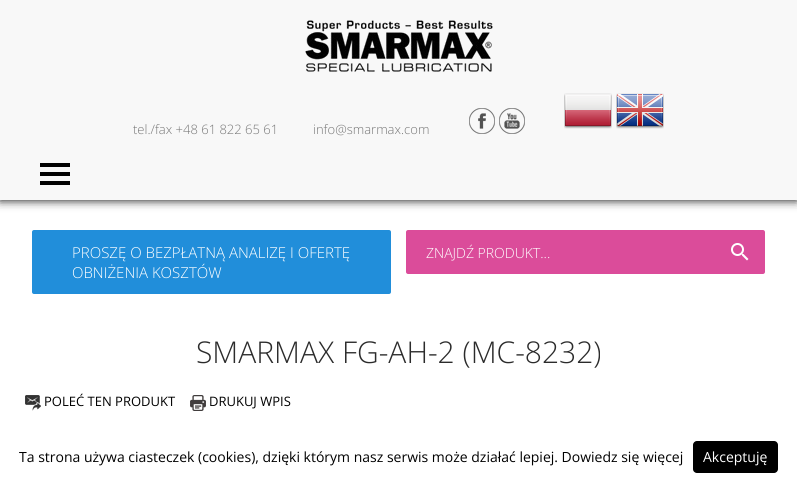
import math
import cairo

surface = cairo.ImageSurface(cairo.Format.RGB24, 797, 483)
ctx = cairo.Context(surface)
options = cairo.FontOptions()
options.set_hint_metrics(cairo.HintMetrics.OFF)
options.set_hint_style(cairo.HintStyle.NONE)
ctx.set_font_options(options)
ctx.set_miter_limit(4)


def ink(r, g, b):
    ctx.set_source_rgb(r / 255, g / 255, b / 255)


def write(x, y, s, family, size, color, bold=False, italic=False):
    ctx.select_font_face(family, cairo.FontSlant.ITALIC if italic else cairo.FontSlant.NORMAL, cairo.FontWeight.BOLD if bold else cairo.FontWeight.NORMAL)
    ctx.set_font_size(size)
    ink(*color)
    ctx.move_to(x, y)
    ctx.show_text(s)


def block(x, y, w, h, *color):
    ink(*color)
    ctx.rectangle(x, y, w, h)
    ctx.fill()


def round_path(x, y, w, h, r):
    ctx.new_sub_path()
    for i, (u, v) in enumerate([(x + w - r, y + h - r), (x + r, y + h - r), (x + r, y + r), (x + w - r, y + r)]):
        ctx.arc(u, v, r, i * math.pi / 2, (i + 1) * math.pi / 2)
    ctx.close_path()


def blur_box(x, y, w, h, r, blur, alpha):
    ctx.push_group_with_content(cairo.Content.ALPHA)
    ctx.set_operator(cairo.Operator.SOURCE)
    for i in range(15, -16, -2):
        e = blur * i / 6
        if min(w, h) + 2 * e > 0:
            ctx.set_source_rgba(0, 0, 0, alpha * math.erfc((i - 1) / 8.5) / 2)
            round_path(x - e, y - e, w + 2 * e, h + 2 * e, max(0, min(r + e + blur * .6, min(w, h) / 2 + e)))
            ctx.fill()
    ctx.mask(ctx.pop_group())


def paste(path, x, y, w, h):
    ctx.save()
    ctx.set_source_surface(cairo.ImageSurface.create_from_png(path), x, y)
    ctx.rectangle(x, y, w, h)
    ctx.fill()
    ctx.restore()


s1 = dict(family="Open Sans Light", size=13, color=(119, 119, 119))
s2 = dict(family="Open Sans Light", size=15, color=(255, 255, 255))
s3 = dict(family="Open Sans Light", size=14, color=(255, 255, 255))
s4 = dict(family="Open Sans Light", size=30, color=(43, 43, 43))
s5 = dict(family="Open Sans", size=13, color=(0, 0, 0))
s6 = dict(family="Open Sans", size=14, color=(0, 0, 0))
s7 = dict(family="Open Sans", size=14, color=(255, 255, 255))

ink(255, 255, 255)
ctx.paint()
ink(0, 0, 0)
blur_box(0, 0, 797, 200, 0, 5, 1)
block(0, 0, 797, 200, 248, 248, 248)
paste("pic1.png", 305, 20, 188, 52)
write(133, 134, "tel./fax +48 61 822 65 61", **s1)
write(313, 134, "info@smarmax.com", **s1)
paste("pic2.png", 469, 108, 26, 26)
paste("pic3.png", 499, 108, 26, 26)
paste("pic4.png", 564, 93, 48, 36)
paste("pic5.png", 616, 93, 48, 36)
block(40, 163, 30, 4, 2, 2, 2)
block(40, 172, 30, 4, 2, 2, 2)
block(40, 181, 30, 4, 2, 2, 2)
ink(33, 142, 218)
round_path(32, 230, 359, 64, 2)
ctx.fill()
write(72, 258, "PROSZĘ O BEZPŁATNĄ ANALIZĘ I OFERTĘ", **s2)
write(72, 278, "OBNIŻENIA KOSZTÓW", **s2)
ink(219, 76, 154)
ctx.new_path()
ctx.move_to(408, 230)
ctx.line_to(715, 230)
ctx.line_to(715, 274)
ctx.line_to(408, 274)
ctx.curve_to(407, 274, 406, 273, 406, 272)
ctx.line_to(406, 232)
ctx.curve_to(406, 231, 407, 230, 408, 230)
ctx.close_path()
ctx.fill()
write(426, 258, "ZNAJDŹ PRODUKT...", **s3)
ink(219, 76, 154)
ctx.new_path()
ctx.move_to(715, 230)
ctx.line_to(763, 230)
ctx.curve_to(764, 230, 765, 231, 765, 232)
ctx.line_to(765, 272)
ctx.curve_to(765, 273, 764, 274, 763, 274)
ctx.line_to(715, 274)
ctx.close_path()
ctx.fill()
paste("pic6.png", 731, 243, 18, 18)
write(196, 363, "SMARMAX FG-AH-2 (MC-8232)", **s4)
paste("pic7.png", 25, 395, 16, 16)
write(44, 406, "POLEĆ TEN PRODUKT", **s5)
paste("pic8.png", 190, 395, 16, 16)
write(209, 406, "DRUKUJ WPIS", **s5)
write(19, 462, "Ta strona używa ciasteczek (cookies), dzięki którym nasz serwis może działać lepiej. Dowiedz się więcej", **s6)
round_path(693, 441, 85, 32, 4)
ctx.fill()
write(703, 462, "Akceptuję", **s7)
surface.write_to_png("screenshot.png")
